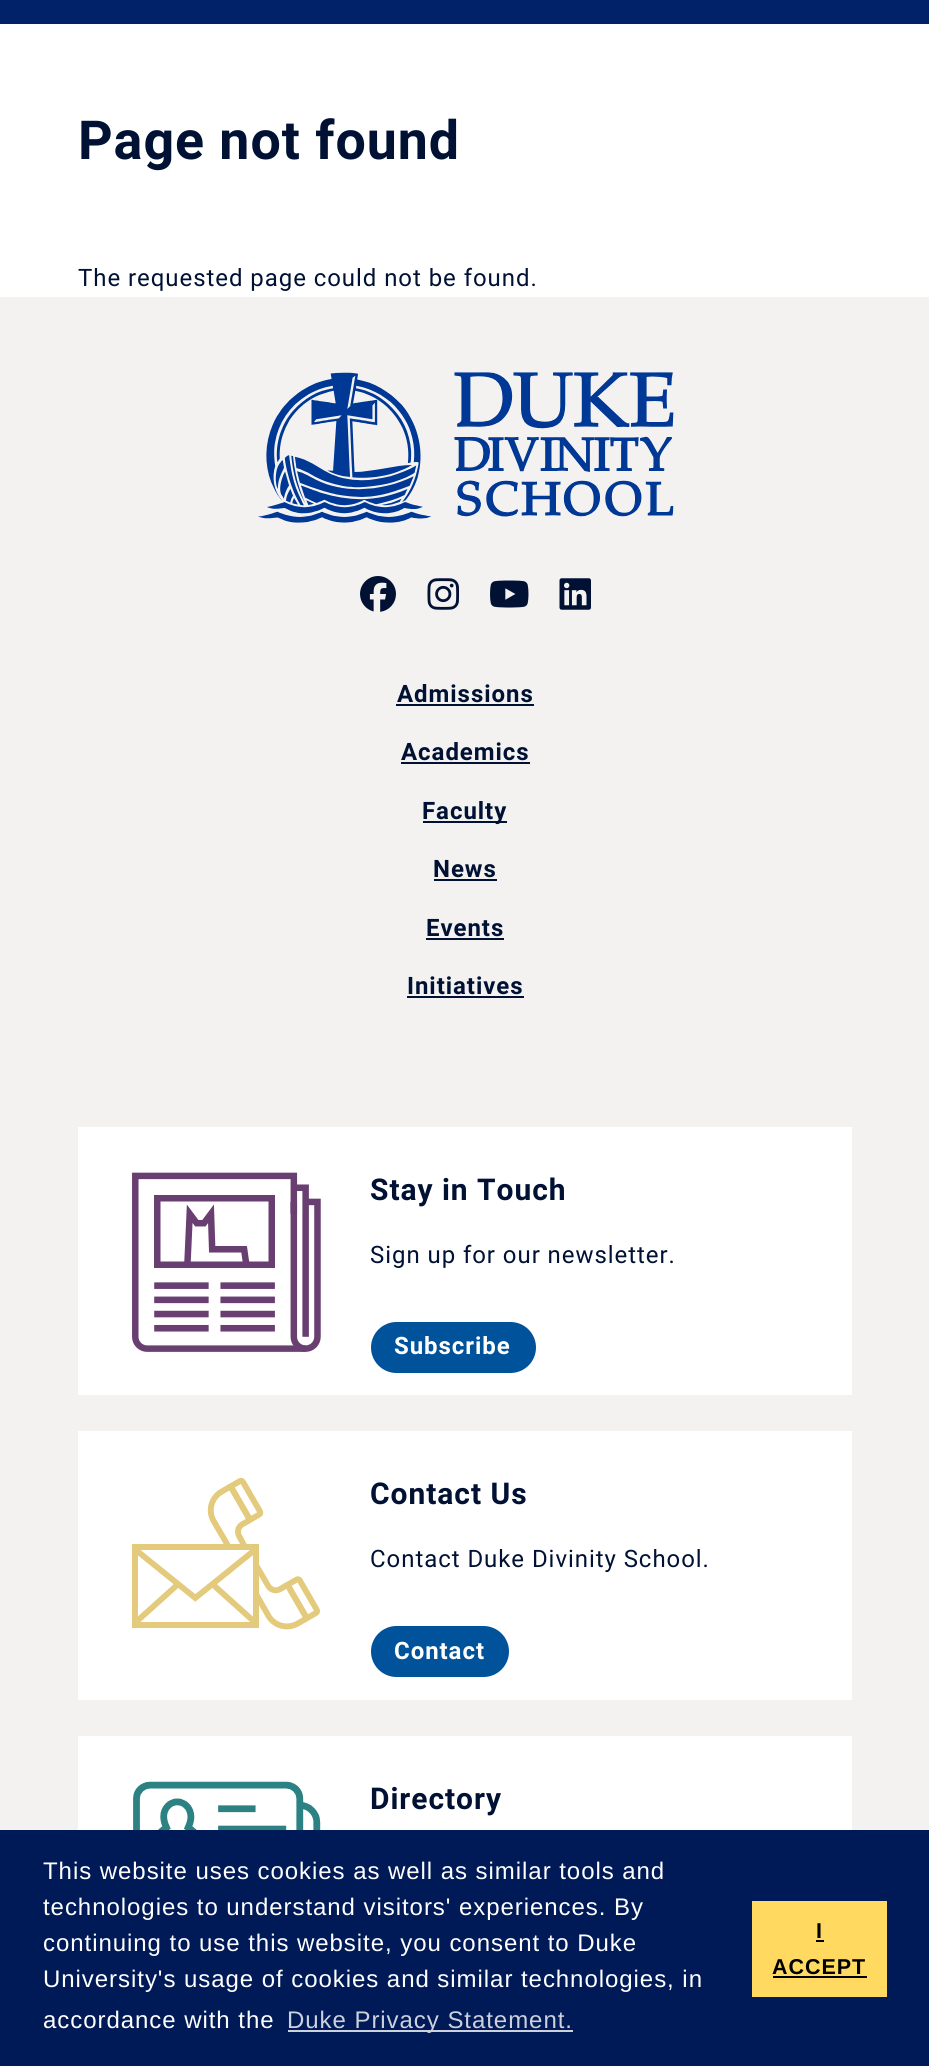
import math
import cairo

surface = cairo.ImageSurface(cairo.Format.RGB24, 929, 2066)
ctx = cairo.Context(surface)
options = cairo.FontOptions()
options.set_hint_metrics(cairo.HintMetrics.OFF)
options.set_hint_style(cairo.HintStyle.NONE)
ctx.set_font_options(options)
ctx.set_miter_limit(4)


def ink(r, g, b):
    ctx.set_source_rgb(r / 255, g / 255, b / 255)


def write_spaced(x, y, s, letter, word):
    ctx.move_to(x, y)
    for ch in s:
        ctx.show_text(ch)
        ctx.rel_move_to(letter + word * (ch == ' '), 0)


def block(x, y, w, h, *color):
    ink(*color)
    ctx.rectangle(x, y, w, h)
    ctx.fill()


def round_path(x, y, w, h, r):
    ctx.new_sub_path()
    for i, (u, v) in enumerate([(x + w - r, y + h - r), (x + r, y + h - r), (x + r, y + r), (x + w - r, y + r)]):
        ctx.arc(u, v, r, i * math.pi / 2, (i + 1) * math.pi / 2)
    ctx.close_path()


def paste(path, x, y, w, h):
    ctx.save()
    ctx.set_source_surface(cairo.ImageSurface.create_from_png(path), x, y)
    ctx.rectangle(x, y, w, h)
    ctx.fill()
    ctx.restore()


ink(255, 255, 255)
ctx.paint()
block(0, 0, 929, 24, 1, 33, 105)
ctx.select_font_face("Roboto", cairo.FontSlant.NORMAL, cairo.FontWeight.BOLD)
ctx.set_font_size(53.75)
ink(0, 17, 51)
write_spaced(78, 159, "Page not found", 0.95, 0)
ctx.select_font_face("Roboto")
ctx.set_font_size(24)
write_spaced(78, 286, "The requested page could not be found.", 0.95, 0)
block(0, 297, 929, 1533, 243, 242, 241)
paste("pic1.png", 258, 372, 416, 151)
paste("pic2.png", 360, 576, 36, 36)
paste("pic3.png", 427, 578, 32, 32)
paste("pic4.png", 490, 580, 39, 28)
paste("pic5.png", 559, 578, 32, 32)
ctx.select_font_face("Roboto", cairo.FontSlant.NORMAL, cairo.FontWeight.BOLD)
ink(0, 17, 51)
write_spaced(397, 702, "Admissions", 0.95, 0)
block(396, 704, 138, 2, 0, 17, 51)
write_spaced(401, 760, "Academics", 0.95, 0)
block(401, 762, 129, 2, 0, 17, 51)
block(423, 821, 84, 2, 0, 17, 51)
write_spaced(422, 819, "Faculty", 0.95, 0)
write_spaced(433, 877, "News", 0.95, 0)
block(434, 879, 63, 2, 0, 17, 51)
write_spaced(426, 936, "Events", 0.95, 0)
block(426, 938, 78, 2, 0, 17, 51)
write_spaced(407, 994, "Initiatives", 0.95, 0)
block(407, 996, 117, 2, 0, 17, 51)
block(78, 1127, 774, 268, 255, 255, 255)
paste("pic6.png", 132, 1172, 189, 180)
ctx.set_font_size(30)
ink(0, 17, 51)
write_spaced(370, 1200, "Stay in Touch", 0.95, 0)
ctx.select_font_face("Roboto")
ctx.set_font_size(24)
write_spaced(370, 1263, "Sign up for our newsletter.", 0.95, 0)
ink(0, 83, 155)
round_path(371, 1322, 165, 51, 25.5)
ctx.fill()
ctx.select_font_face("Roboto", cairo.FontSlant.NORMAL, cairo.FontWeight.BOLD)
ink(255, 255, 255)
write_spaced(394, 1354, "Subscribe", 0.95, 0)
block(78, 1431, 774, 269, 255, 255, 255)
paste("pic7.png", 132, 1477, 188, 153)
ctx.set_font_size(30)
ink(0, 17, 51)
write_spaced(370, 1504, "Contact Us", 0.95, 0)
ctx.select_font_face("Roboto")
ctx.set_font_size(24)
write_spaced(370, 1567, "Contact Duke Divinity School.", 0.95, 0)
ink(0, 83, 155)
round_path(371, 1626, 138, 51, 25.5)
ctx.fill()
ctx.select_font_face("Roboto", cairo.FontSlant.NORMAL, cairo.FontWeight.BOLD)
ink(255, 255, 255)
write_spaced(394, 1659, "Contact", 0.95, 0)
block(78, 1736, 774, 94, 255, 255, 255)
paste("pic8.png", 133, 1781, 188, 49)
ctx.set_font_size(30)
ink(0, 17, 51)
write_spaced(370, 1809, "Directory", 0.95, 0)
block(0, 1830, 929, 236, 0, 26, 87)
ctx.select_font_face("Liberation Sans")
ctx.set_font_size(24)
ink(255, 255, 255)
write_spaced(43, 1879, "This website uses cookies as well as similar tools and", 0.95, 0)
write_spaced(43, 1915, "technologies to understand visitors' experiences. By", 0.95, 0)
write_spaced(43, 1951, "continuing to use this website, you consent to Duke", 0.95, 0)
write_spaced(43, 1987, "University's usage of cookies and similar technologies, in", 0.95, 0)
write_spaced(43, 2028, "accordance with the", 0.95, 0)
block(288, 2030, 285, 2, 204, 209, 221)
write_spaced(287, 2028, "Duke Privacy Statement.", 0.95, 0)
block(752, 1901, 135, 96, 255, 217, 96)
ctx.select_font_face("Liberation Sans", cairo.FontSlant.NORMAL, cairo.FontWeight.BOLD)
ctx.set_font_size(21.5)
ink(0, 0, 0)
write_spaced(816, 1938, "I", 0.95, 0)
block(816, 1940, 8, 2, 0, 0, 0)
write_spaced(772, 1974, "ACCEPT", 0.95, 0)
block(773, 1976, 94, 2, 0, 0, 0)
surface.write_to_png("screenshot.png")
